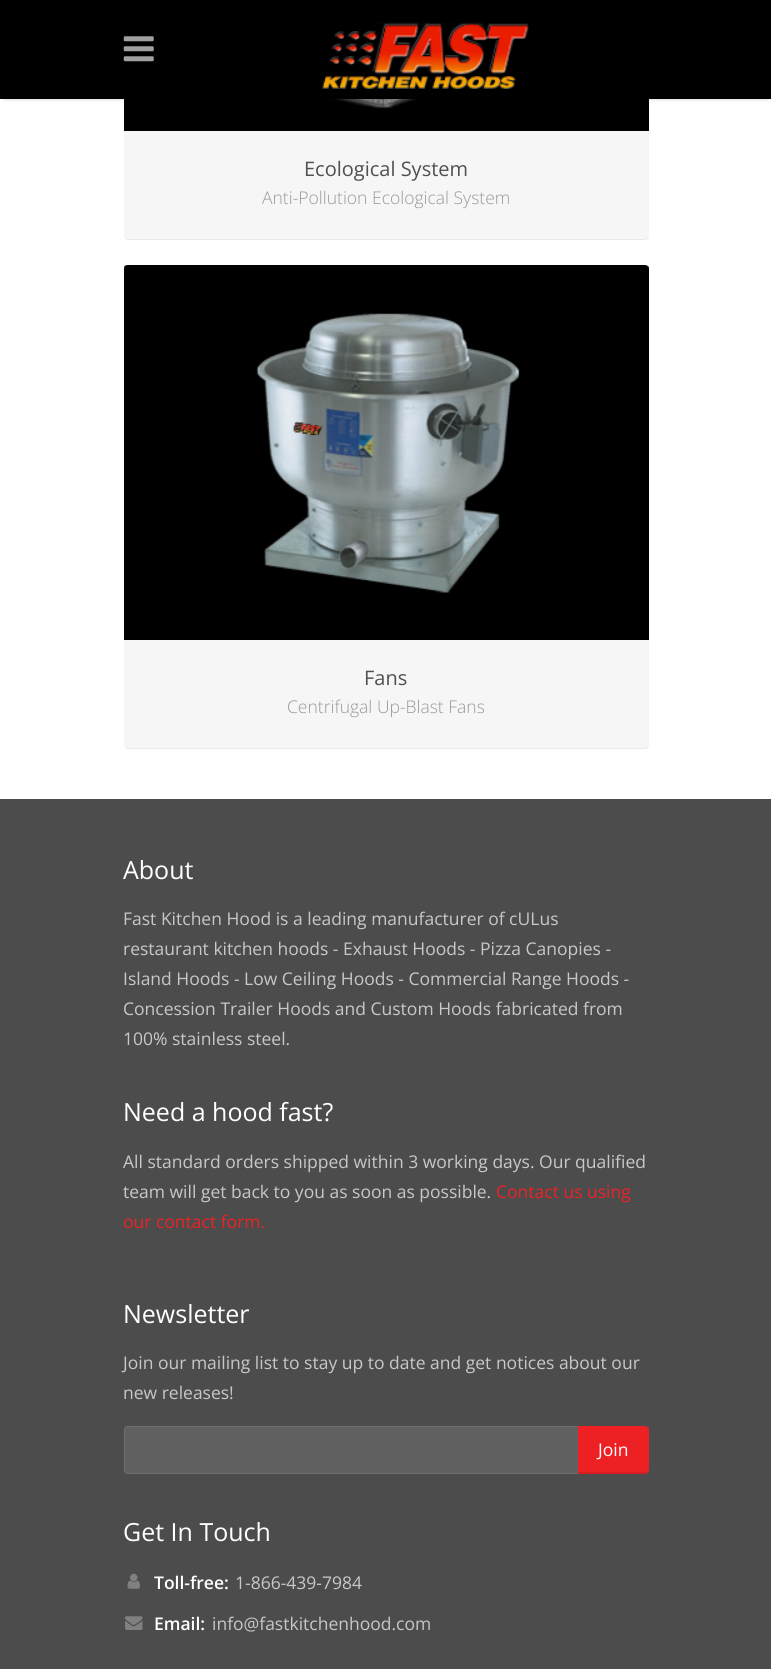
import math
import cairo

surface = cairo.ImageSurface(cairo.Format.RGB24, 771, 1669)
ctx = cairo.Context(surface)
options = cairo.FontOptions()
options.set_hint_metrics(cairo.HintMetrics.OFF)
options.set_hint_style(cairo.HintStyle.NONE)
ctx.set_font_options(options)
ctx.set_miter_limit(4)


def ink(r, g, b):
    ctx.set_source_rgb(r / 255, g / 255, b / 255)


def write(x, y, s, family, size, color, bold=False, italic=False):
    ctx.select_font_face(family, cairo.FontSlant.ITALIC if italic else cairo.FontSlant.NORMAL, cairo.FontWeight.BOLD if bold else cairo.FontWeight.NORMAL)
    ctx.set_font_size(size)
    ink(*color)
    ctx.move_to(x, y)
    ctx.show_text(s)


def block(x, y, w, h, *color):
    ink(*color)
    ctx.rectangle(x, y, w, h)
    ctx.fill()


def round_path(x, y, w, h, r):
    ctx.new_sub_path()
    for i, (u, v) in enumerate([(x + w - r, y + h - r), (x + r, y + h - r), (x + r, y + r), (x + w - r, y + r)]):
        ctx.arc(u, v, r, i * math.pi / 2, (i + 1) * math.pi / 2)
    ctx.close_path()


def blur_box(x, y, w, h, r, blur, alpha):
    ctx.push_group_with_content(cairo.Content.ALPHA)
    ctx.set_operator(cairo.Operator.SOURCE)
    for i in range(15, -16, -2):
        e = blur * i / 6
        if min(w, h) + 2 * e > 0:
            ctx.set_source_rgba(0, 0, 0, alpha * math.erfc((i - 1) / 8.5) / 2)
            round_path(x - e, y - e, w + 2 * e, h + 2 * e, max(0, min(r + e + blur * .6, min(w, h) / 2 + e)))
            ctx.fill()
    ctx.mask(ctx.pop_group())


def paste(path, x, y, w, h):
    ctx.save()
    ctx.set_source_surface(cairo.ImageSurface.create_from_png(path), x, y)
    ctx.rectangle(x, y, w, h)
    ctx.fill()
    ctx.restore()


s1 = dict(family="Open Sans", size=20, color=(80, 80, 80))
s2 = dict(family="Open Sans Light", size=17.5, color=(153, 153, 153))
s3 = dict(family="Open Sans", size=25, color=(255, 255, 255))
s4 = dict(family="Open Sans", size=17.5, color=(200, 200, 200))
s5 = dict(family="Open Sans", size=17.5, color=(237, 33, 36))
s6 = dict(family="Open Sans", size=17.5, color=(255, 255, 255))
s7 = dict(family="Open Sans SemiBold", size=17.5, color=(255, 255, 255))

ink(255, 255, 255)
ctx.paint()
paste("pic3.png", 124, 99, 525, 32)
ink(0, 0, 0)
blur_box(4, 8, 764, 91, 0, 2, 0.2)
block(0, 0, 771, 99, 0, 0, 0)
paste("pic1.png", 123, 36, 31, 26)
paste("pic2.png", 322, 22, 207, 67)
ink(246, 246, 246)
ctx.new_path()
ctx.move_to(124, 131)
ctx.line_to(649, 131)
ctx.line_to(649, 236)
ctx.curve_to(649, 238, 647, 240, 645, 240)
ctx.line_to(128, 240)
ctx.curve_to(126, 240, 124, 238, 124, 236)
ctx.close_path()
ctx.fill()
ctx.set_source_rgba(0, 0, 0, 0.05)
ctx.new_path()
ctx.move_to(124, 235)
ctx.line_to(124, 236)
ctx.curve_to(124, 238, 126, 240, 128, 240)
ctx.line_to(645, 240)
ctx.curve_to(647, 240, 649, 238, 649, 236)
ctx.line_to(649, 235)
ctx.curve_to(649, 237, 647, 239, 645, 239)
ctx.line_to(128, 239)
ctx.curve_to(125, 239, 124, 237, 124, 235)
ctx.close_path()
ctx.fill()
write(304, 176, "Ecological System", **s1)
write(262, 204, "Anti-Pollution Ecological System", **s2)
paste("pic4.png", 124, 265, 525, 375)
ink(246, 246, 246)
ctx.new_path()
ctx.move_to(124, 640)
ctx.line_to(649, 640)
ctx.line_to(649, 745)
ctx.curve_to(649, 747, 647, 749, 645, 749)
ctx.line_to(128, 749)
ctx.curve_to(126, 749, 124, 747, 124, 745)
ctx.close_path()
ctx.fill()
ctx.set_source_rgba(0, 0, 0, 0.05)
ctx.new_path()
ctx.move_to(124, 744)
ctx.line_to(124, 745)
ctx.curve_to(124, 747, 126, 749, 128, 749)
ctx.line_to(645, 749)
ctx.curve_to(647, 749, 649, 747, 649, 745)
ctx.line_to(649, 744)
ctx.curve_to(649, 746, 647, 748, 645, 748)
ctx.line_to(128, 748)
ctx.curve_to(125, 748, 124, 746, 124, 744)
ctx.close_path()
ctx.fill()
write(364, 685, "Fans", **s1)
write(287, 713, "Centrifugal Up-Blast Fans", **s2)
block(0, 799, 771, 870, 76, 76, 76)
write(123, 879, "About", **s3)
write(123, 925, "Fast Kitchen Hood is a leading manufacturer of cULus", **s4)
write(123, 955, "restaurant kitchen hoods - Exhaust Hoods - Pizza Canopies -", **s4)
write(123, 985, "Island Hoods - Low Ceiling Hoods - Commercial Range Hoods -", **s4)
write(123, 1015, "Concession Trailer Hoods and Custom Hoods fabricated from", **s4)
write(123, 1045, "100% stainless steel.", **s4)
write(123, 1121, "Need a hood fast?", **s3)
write(123, 1168, "All standard orders shipped within 3 working days. Our qualified", **s4)
write(123, 1198, "team will get back to you as soon as possible.", **s4)
write(496, 1198, "Contact us using", **s5)
write(123, 1228, "our contact form.", **s5)
write(123, 1323, "Newsletter", **s3)
write(123, 1369, "Join our mailing list to stay up to date and get notices about our", **s4)
write(123, 1399, "new releases!", **s4)
ink(96, 96, 96)
ctx.new_path()
ctx.move_to(128, 1426.5)
ctx.line_to(602.5, 1426.5)
ctx.line_to(602.5, 1473.5)
ctx.line_to(128, 1473.5)
ctx.curve_to(126, 1473.5, 124.5, 1472, 124.5, 1470)
ctx.line_to(124.5, 1430)
ctx.curve_to(124.5, 1428, 126, 1426.5, 128, 1426.5)
ctx.close_path()
ctx.fill_preserve()
ink(112, 112, 112)
ctx.set_line_width(1)
ctx.stroke()
ink(237, 33, 36)
ctx.new_path()
ctx.move_to(578, 1426)
ctx.line_to(645, 1426)
ctx.curve_to(647, 1426, 649, 1428, 649, 1430)
ctx.line_to(649, 1470)
ctx.curve_to(649, 1472, 647, 1474, 645, 1474)
ctx.line_to(578, 1474)
ctx.close_path()
ctx.fill()
ctx.set_source_rgba(0, 0, 0, 0.1)
ctx.new_path()
ctx.move_to(578, 1472)
ctx.line_to(578, 1474)
ctx.line_to(645, 1474)
ctx.curve_to(647, 1474, 649, 1472, 649, 1470)
ctx.line_to(649, 1469)
ctx.curve_to(649, 1471, 647, 1472, 645, 1472)
ctx.close_path()
ctx.fill()
write(598, 1456, "Join", **s6)
write(123, 1541, "Get In Touch", **s3)
paste("pic5.png", 127, 1573, 13, 16)
write(154, 1589, "Toll-free:", **s7)
write(235, 1589, "1-866-439-7984", **s4)
paste("pic6.png", 125, 1616, 18, 14)
write(154, 1630, "Email:", **s7)
write(212, 1630, "info@fastkitchenhood.com", **s4)
surface.write_to_png("screenshot.png")
